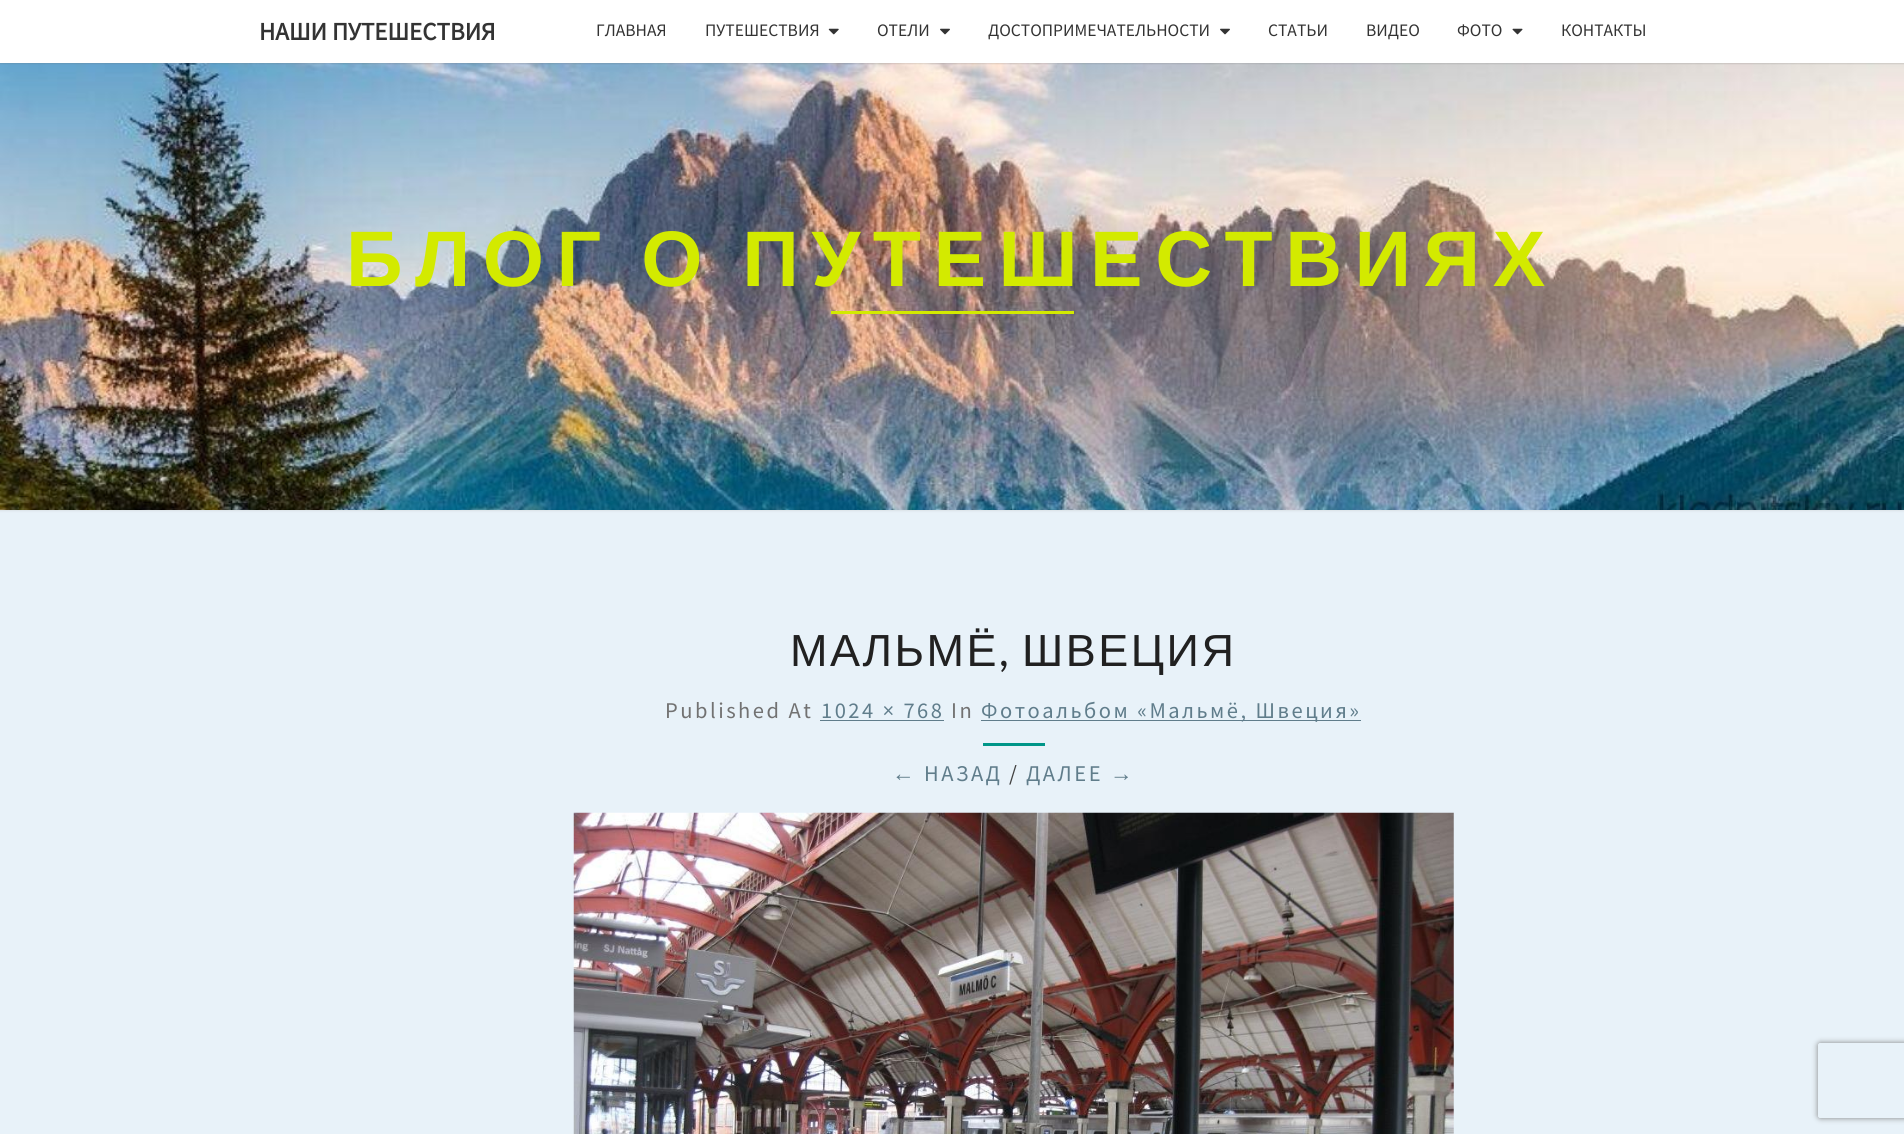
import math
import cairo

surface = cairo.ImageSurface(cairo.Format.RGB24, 1904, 1134)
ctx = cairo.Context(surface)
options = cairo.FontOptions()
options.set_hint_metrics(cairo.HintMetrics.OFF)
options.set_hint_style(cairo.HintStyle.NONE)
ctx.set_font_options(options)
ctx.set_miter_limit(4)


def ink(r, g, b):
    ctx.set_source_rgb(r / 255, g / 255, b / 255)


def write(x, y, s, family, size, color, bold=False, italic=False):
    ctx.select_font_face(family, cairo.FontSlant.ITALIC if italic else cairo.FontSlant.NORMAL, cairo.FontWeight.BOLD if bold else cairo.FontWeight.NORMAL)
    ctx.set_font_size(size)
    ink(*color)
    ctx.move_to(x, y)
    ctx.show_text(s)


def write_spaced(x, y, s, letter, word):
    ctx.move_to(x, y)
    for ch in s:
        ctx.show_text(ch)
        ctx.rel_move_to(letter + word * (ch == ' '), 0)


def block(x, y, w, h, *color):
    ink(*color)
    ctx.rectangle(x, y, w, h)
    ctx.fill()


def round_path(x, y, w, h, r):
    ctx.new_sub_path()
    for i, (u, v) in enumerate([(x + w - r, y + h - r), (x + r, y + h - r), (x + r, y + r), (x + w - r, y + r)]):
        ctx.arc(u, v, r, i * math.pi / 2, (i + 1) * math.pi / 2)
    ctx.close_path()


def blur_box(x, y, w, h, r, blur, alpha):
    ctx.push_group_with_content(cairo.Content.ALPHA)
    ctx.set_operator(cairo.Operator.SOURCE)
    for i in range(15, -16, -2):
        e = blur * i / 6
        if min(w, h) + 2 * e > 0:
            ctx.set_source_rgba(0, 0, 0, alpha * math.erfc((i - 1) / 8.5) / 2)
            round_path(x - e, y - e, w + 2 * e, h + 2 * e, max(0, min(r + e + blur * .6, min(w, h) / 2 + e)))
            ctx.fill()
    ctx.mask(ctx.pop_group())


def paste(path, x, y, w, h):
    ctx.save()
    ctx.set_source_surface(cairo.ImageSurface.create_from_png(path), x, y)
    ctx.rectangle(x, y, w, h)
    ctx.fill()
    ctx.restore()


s1 = dict(family="Source Sans Pro", size=25, color=(51, 51, 51), bold=True)
s2 = dict(family="Source Sans Pro", size=17.5, color=(51, 51, 51))

ink(232, 242, 249)
ctx.paint()
ink(182, 182, 182)
blur_box(-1, 61, 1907, 450, 0, 1, 0.3)
paste("pic4.png", 0, 63, 1904, 447)
ink(100, 100, 100)
blur_box(0, 1, 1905, 63, 0, 0.5, 0.2)
block(0, 0, 1904, 63, 255, 255, 255)
write(259, 40, "НАШИ ПУТЕШЕСТВИЯ", **s1)
write(596, 36, "ГЛАВНАЯ", **s2)
write(705, 36, "ПУТЕШЕСТВИЯ", **s2)
paste("pic1.png", 828, 28, 11, 7)
write(877, 36, "ОТЕЛИ", **s2)
paste("pic2.png", 940, 28, 10, 7)
write(988, 36, "ДОСТОПРИМЕЧАТЕЛЬНОСТИ", **s2)
paste("pic2.png", 1220, 28, 10, 7)
write(1268, 36, "СТАТЬИ", **s2)
write(1366, 36, "ВИДЕО", **s2)
write(1457, 36, "ФОТО", **s2)
paste("pic3.png", 1512, 28, 11, 7)
write(1561, 36, "КОНТАКТЫ", **s2)
ctx.select_font_face("Liberation Sans", cairo.FontSlant.NORMAL, cairo.FontWeight.BOLD)
ctx.set_font_size(78.75)
ink(211, 234, 0)
write_spaced(346, 286, "БЛОГ О ПУТЕШЕСТВИЯХ", 12.5, -7)
block(831, 311, 243, 3, 211, 234, 0)
ctx.select_font_face("Liberation Sans")
ctx.set_font_size(45)
ink(33, 33, 33)
write_spaced(790, 666, "МАЛЬМЁ", 2.5, 0)
ctx.select_font_face("Lato")
write_spaced(999, 666, ",", 2.5, 0)
ctx.select_font_face("Liberation Sans")
write_spaced(1022, 666, "ШВЕЦИЯ", 2.5, 0)
ctx.select_font_face("Source Sans Pro")
ctx.set_font_size(22.5)
ink(114, 114, 114)
write_spaced(665, 718, "Published At", 2.5, 0)
ink(96, 125, 139)
write_spaced(821, 718, "1024 × 768", 2.5, 0)
block(820, 720, 124, 1, 96, 125, 139)
ink(114, 114, 114)
write_spaced(951, 718, "In", 2.5, 0)
block(981, 720, 380, 1, 96, 125, 139)
write_spaced(981, 718, "Фотоальбом «Мальмё, Швеция»", 2.5, 0)
block(983, 743, 62, 3, 0, 150, 136)
ctx.select_font_face("Liberation Sans")
ink(96, 125, 139)
write_spaced(892, 781, "←", 2.5, 0)
ctx.select_font_face("Source Sans Pro")
write_spaced(924, 781, "НАЗАД", 2.5, 0)
ink(66, 66, 66)
write_spaced(1009, 781, "/", 2.5, 0)
ink(96, 125, 139)
write_spaced(1026, 781, "ДАЛЕЕ", 2.5, 0)
ctx.select_font_face("Liberation Sans")
write_spaced(1110, 781, "→", 2.5, 0)
paste("pic5.png", 573, 812, 881, 322)
ctx.save()
ctx.set_fill_rule(cairo.FillRule.EVEN_ODD)
ctx.new_path()
ctx.move_to(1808, 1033)
ctx.line_to(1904, 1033)
ctx.line_to(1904, 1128)
ctx.line_to(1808, 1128)
ctx.close_path()
ctx.move_to(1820.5, 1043)
ctx.line_to(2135.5, 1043)
ctx.curve_to(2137, 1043, 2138, 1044, 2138, 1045.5)
ctx.line_to(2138, 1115.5)
ctx.curve_to(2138, 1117, 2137, 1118, 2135.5, 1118)
ctx.line_to(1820.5, 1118)
ctx.curve_to(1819, 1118, 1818, 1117, 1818, 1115.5)
ctx.line_to(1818, 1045.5)
ctx.curve_to(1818, 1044, 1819, 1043, 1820.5, 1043)
ctx.close_path()
ctx.clip()
ink(128, 128, 128)
blur_box(1818, 1043, 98, 75, 2.5, 3, 1)
ctx.restore()
surface.write_to_png("screenshot.png")
